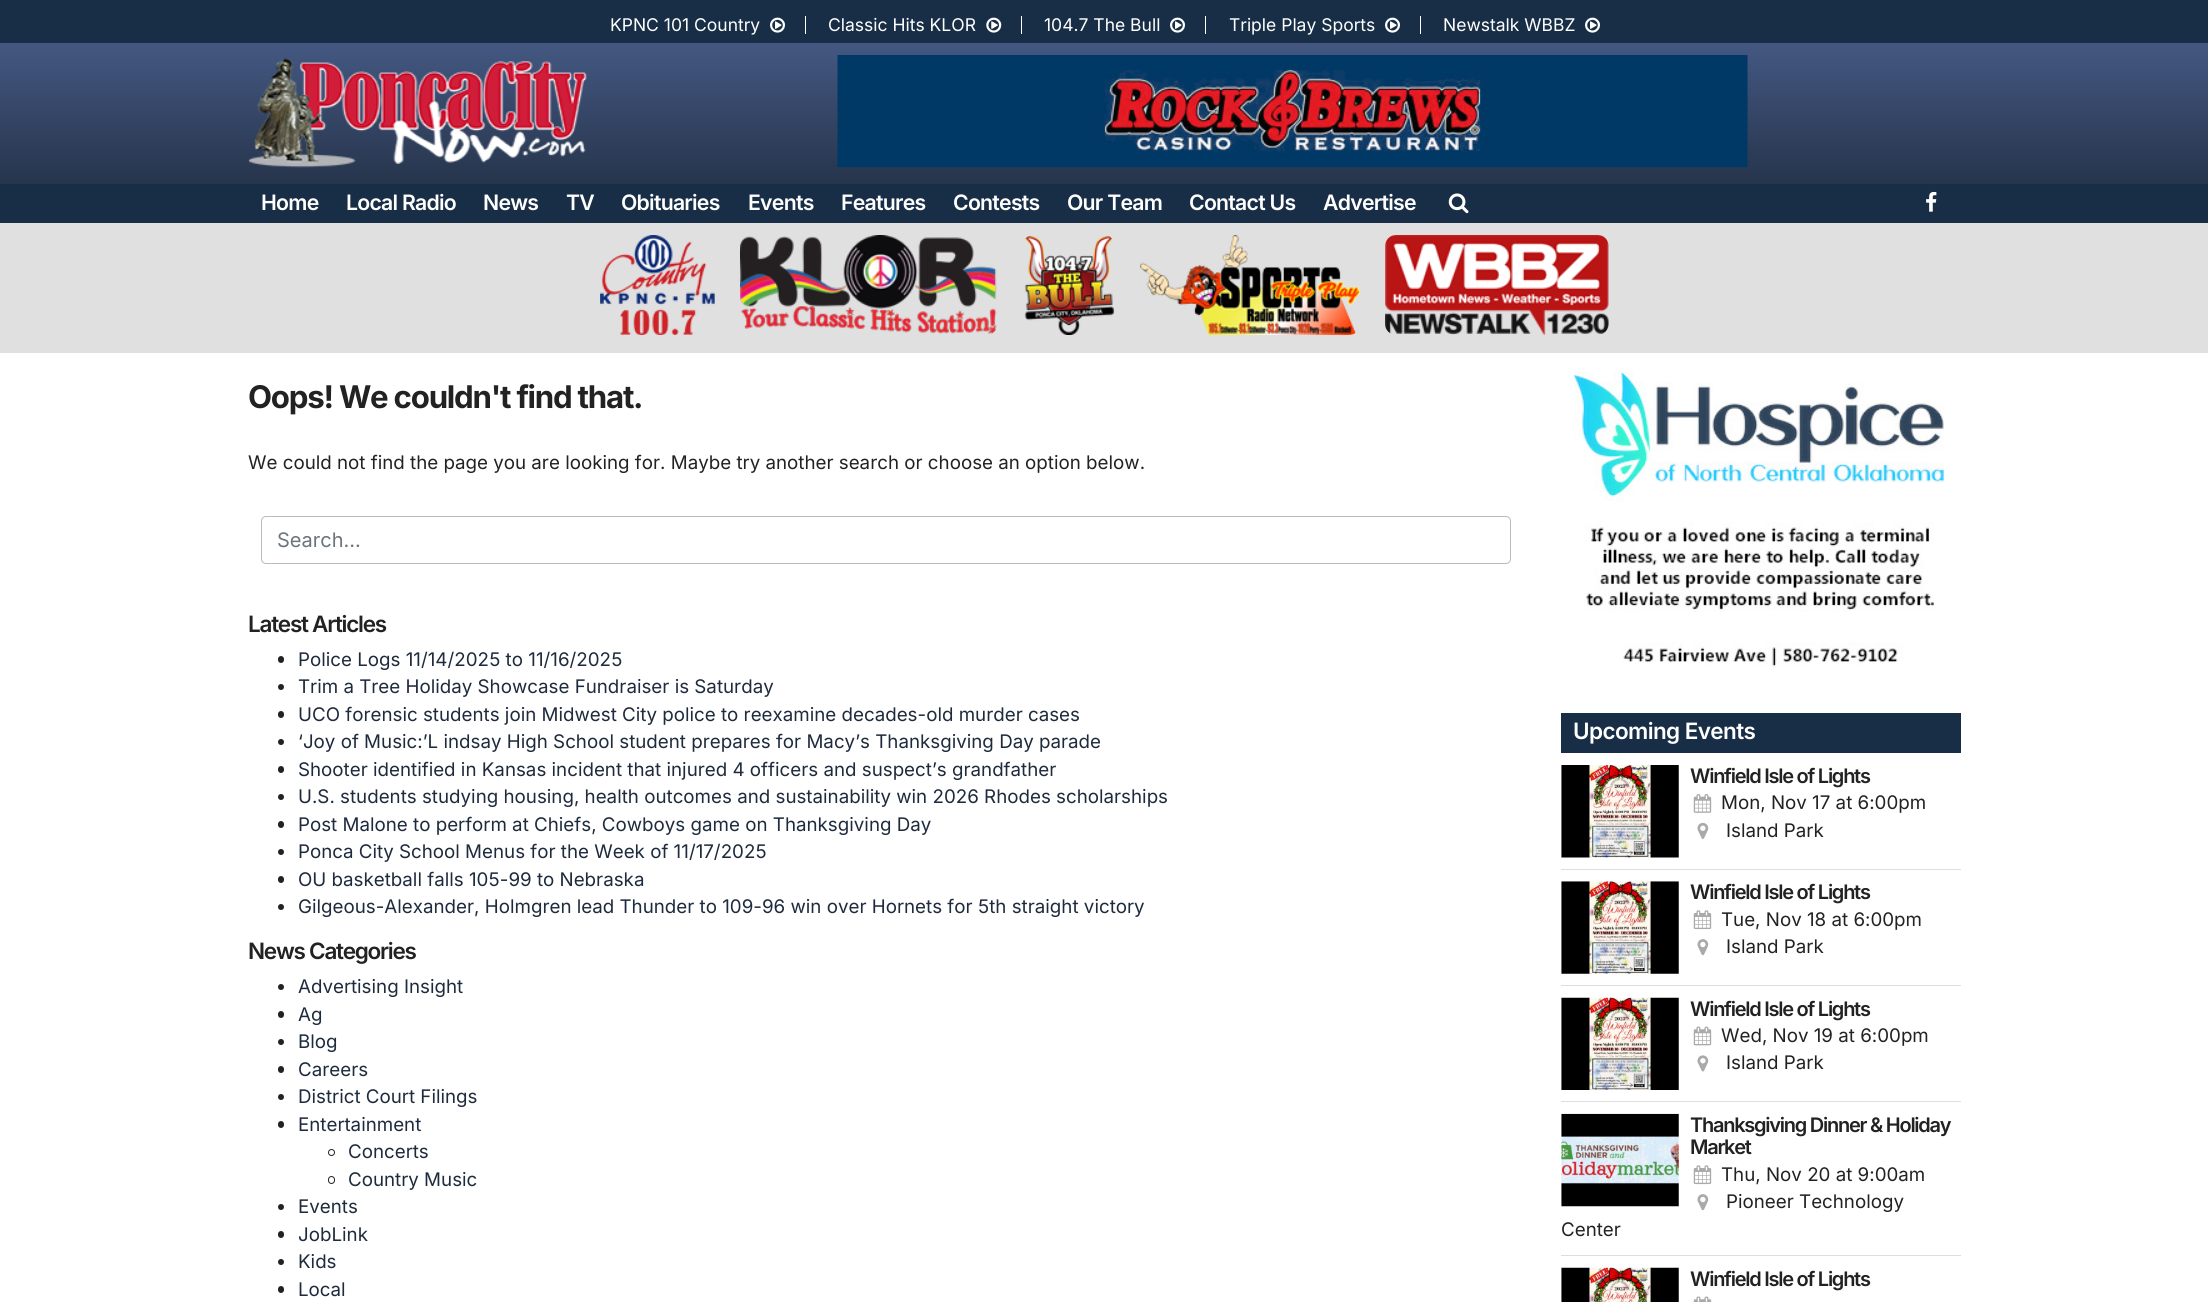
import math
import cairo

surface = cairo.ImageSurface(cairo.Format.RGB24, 2208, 1302)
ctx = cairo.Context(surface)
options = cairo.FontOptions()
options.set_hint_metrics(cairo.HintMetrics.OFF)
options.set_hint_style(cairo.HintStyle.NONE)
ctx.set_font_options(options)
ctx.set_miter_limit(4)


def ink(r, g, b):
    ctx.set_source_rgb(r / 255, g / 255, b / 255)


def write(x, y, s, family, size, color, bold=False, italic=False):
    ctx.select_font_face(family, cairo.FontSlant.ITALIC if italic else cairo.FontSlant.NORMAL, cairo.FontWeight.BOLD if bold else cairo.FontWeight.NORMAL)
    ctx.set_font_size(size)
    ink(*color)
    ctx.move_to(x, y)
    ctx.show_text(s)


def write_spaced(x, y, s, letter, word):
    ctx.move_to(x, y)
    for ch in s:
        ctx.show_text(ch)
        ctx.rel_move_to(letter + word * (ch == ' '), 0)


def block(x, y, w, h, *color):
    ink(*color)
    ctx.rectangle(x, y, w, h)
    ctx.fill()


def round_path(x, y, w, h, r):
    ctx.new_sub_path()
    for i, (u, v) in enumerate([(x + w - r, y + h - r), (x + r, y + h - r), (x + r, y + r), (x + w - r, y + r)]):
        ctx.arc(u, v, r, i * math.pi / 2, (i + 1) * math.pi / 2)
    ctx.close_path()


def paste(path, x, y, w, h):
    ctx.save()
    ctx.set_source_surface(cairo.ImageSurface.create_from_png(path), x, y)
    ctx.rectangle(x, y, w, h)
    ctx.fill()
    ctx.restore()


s1 = dict(family="Inter", size=17.5, color=(255, 255, 255))
s2 = dict(family="Inter", size=18.75, color=(34, 34, 34))
s3 = dict(family="Inter", size=20, color=(108, 117, 125))
s4 = dict(family="Inter", size=18.75, color=(30, 43, 61))

ink(255, 255, 255)
ctx.paint()
block(0, 0, 2208, 43, 24, 46, 70)
block(805, 16, 1, 18, 255, 255, 255)
write(610, 31, "KPNC 101 Country", **s1)
paste("pic1.png", 770, 17, 15, 16)
block(1021, 16, 1, 18, 255, 255, 255)
write(828, 31, "Classic Hits KLOR", **s1)
paste("pic2.png", 986, 17, 16, 16)
block(1205, 16, 1, 18, 255, 255, 255)
write(1044, 31, "104.7 The Bull", **s1)
paste("pic1.png", 1170, 17, 15, 16)
block(1420, 16, 1, 18, 255, 255, 255)
write(1229, 31, "Triple Play Sports", **s1)
paste("pic1.png", 1385, 17, 15, 16)
write(1443, 31, "Newstalk WBBZ", **s1)
paste("pic1.png", 1585, 17, 15, 16)
gradient = cairo.LinearGradient(1104, 42, 1104, 223)
gradient.add_color_stop_rgba(0, 0.267, 0.345, 0.51, 1)
gradient.add_color_stop_rgba(1, 0.118, 0.169, 0.239, 1)
ctx.set_source(gradient)
ctx.rectangle(0, 43, 2208, 141)
ctx.fill()
paste("pic3.png", 248, 58, 339, 110)
paste("pic4.png", 837, 55, 911, 113)
block(0, 184, 2208, 39, 24, 46, 70)
ctx.select_font_face("Inter SemiBold")
ctx.set_font_size(21.25)
ink(255, 255, 255)
write_spaced(261, 210, "Home", -0.75, 0)
write_spaced(346, 210, "Local Radio", -0.75, 0)
write_spaced(483, 210, "News", -0.75, 0)
write_spaced(566, 210, "TV", -0.75, 0)
write_spaced(621, 210, "Obituaries", -0.75, 0)
write_spaced(748, 210, "Events", -0.75, 0)
write_spaced(841, 210, "Features", -0.75, 0)
write_spaced(953, 210, "Contests", -0.75, 0)
write_spaced(1067, 210, "Our Team", -0.75, 0)
write_spaced(1189, 210, "Contact Us", -0.75, 0)
write_spaced(1323, 210, "Advertise", -0.75, 0)
paste("pic5.png", 1448, 193, 21, 21)
paste("pic6.png", 1926, 191, 11, 21)
block(0, 223, 2208, 130, 224, 224, 224)
paste("pic7.png", 600, 235, 115, 100)
paste("pic8.png", 740, 235, 257, 99)
paste("pic9.png", 1024, 235, 91, 100)
paste("pic10.png", 1140, 235, 220, 100)
paste("pic11.png", 1385, 235, 224, 100)
ctx.select_font_face("Inter", cairo.FontSlant.NORMAL, cairo.FontWeight.BOLD)
ctx.set_font_size(31.25)
ink(34, 34, 34)
write_spaced(248, 408, "Oops! We couldn't find that.", -1.25, 0)
write(248, 469, "We could not find the page you are looking for. Maybe try another search or choose an option below.", **s2)
round_path(261.5, 516.5, 1249, 47, 4.5)
ink(187, 187, 187)
ctx.set_line_width(1)
ctx.stroke()
write(277, 547, "Search…", **s3)
ctx.select_font_face("Inter SemiBold")
ctx.set_font_size(22.5)
ink(34, 34, 34)
write_spaced(248, 632, "Latest Articles", -1.25, 0)
round_path(278, 656, 6, 7, 3)
ctx.fill()
write(298, 666, "Police Logs 11/14/2025 to 11/16/2025", **s4)
ink(34, 34, 34)
ctx.new_path()
ctx.arc(281, 687, 3, 0, 2 * math.pi)
ctx.fill()
write(298, 693, "Trim a Tree Holiday Showcase Fundraiser is Saturday", **s4)
ink(34, 34, 34)
round_path(278, 711, 6, 7, 3)
ctx.fill()
write(298, 721, "UCO forensic students join Midwest City police to reexamine decades-old murder cases", **s4)
ink(34, 34, 34)
ctx.new_path()
ctx.arc(281, 742, 3, 0, 2 * math.pi)
ctx.fill()
write(298, 748, "‘Joy of Music:’L indsay High School student prepares for Macy’s Thanksgiving Day parade", **s4)
ink(34, 34, 34)
round_path(278, 766, 6, 7, 3)
ctx.fill()
write(298, 776, "Shooter identified in Kansas incident that injured 4 officers and suspect’s grandfather", **s4)
ink(34, 34, 34)
ctx.new_path()
ctx.arc(281, 797, 3, 0, 2 * math.pi)
ctx.fill()
write(298, 803, "U.S. students studying housing, health outcomes and sustainability win 2026 Rhodes scholarships", **s4)
ink(34, 34, 34)
round_path(278, 821, 6, 7, 3)
ctx.fill()
write(298, 831, "Post Malone to perform at Chiefs, Cowboys game on Thanksgiving Day", **s4)
ink(34, 34, 34)
ctx.new_path()
ctx.arc(281, 852, 3, 0, 2 * math.pi)
ctx.fill()
write(298, 858, "Ponca City School Menus for the Week of 11/17/2025", **s4)
ink(34, 34, 34)
round_path(278, 876, 6, 7, 3)
ctx.fill()
write(298, 886, "OU basketball falls 105-99 to Nebraska", **s4)
ink(34, 34, 34)
ctx.new_path()
ctx.arc(281, 907, 3, 0, 2 * math.pi)
ctx.fill()
write(298, 913, "Gilgeous-Alexander, Holmgren lead Thunder to 109-96 win over Hornets for 5th straight victory", **s4)
ctx.select_font_face("Inter SemiBold")
ctx.set_font_size(22.5)
ink(34, 34, 34)
write_spaced(248, 959, "News Categories", -1.25, 0)
ctx.new_path()
ctx.arc(281, 987, 3, 0, 2 * math.pi)
ctx.fill()
write(298, 993, "Advertising Insight", **s4)
ink(34, 34, 34)
round_path(278, 1011, 6, 7, 3)
ctx.fill()
write(298, 1021, "Ag", **s4)
ink(34, 34, 34)
ctx.new_path()
ctx.arc(281, 1042, 3, 0, 2 * math.pi)
ctx.fill()
write(298, 1048, "Blog", **s4)
ink(34, 34, 34)
round_path(278, 1066, 6, 7, 3)
ctx.fill()
write(298, 1076, "Careers", **s4)
ink(34, 34, 34)
ctx.new_path()
ctx.arc(281, 1097, 3, 0, 2 * math.pi)
ctx.fill()
write(298, 1103, "District Court Filings", **s4)
ink(34, 34, 34)
round_path(278, 1121, 6, 7, 3)
ctx.fill()
write(298, 1131, "Entertainment", **s4)
ctx.new_path()
ctx.arc(331.5, 1152.5, 3, 0, 2 * math.pi)
ink(34, 34, 34)
ctx.stroke()
write(348, 1158, "Concerts", **s4)
round_path(328.5, 1176.5, 6, 7, 3)
ink(34, 34, 34)
ctx.stroke()
write(348, 1186, "Country Music", **s4)
ink(34, 34, 34)
ctx.new_path()
ctx.arc(281, 1207, 3, 0, 2 * math.pi)
ctx.fill()
write(298, 1213, "Events", **s4)
ink(34, 34, 34)
round_path(278, 1231, 6, 7, 3)
ctx.fill()
write(298, 1241, "JobLink", **s4)
ink(34, 34, 34)
ctx.new_path()
ctx.arc(281, 1262, 3, 0, 2 * math.pi)
ctx.fill()
write(298, 1268, "Kids", **s4)
ink(34, 34, 34)
round_path(278, 1286, 6, 7, 3)
ctx.fill()
write(298, 1296, "Local", **s4)
paste("pic12.png", 1573, 371, 371, 296)
block(1561, 713, 400, 40, 24, 46, 70)
ctx.select_font_face("Inter SemiBold")
ctx.set_font_size(22.5)
ink(255, 255, 255)
write_spaced(1573, 739, "Upcoming Events", -0.6, 0)
block(1561, 869, 400, 1, 221, 221, 221)
paste("pic13.png", 1561, 765, 118, 93)
ctx.set_font_size(20)
ink(34, 34, 34)
write_spaced(1690, 783, "Winfield Isle of Lights", -1.25, 0)
paste("pic14.png", 1693, 794, 19, 19)
write(1721, 809, "Mon, Nov 17 at 6:00pm", **s2)
paste("pic15.png", 1697, 822, 12, 17)
write(1726, 837, "Island Park", **s2)
block(1561, 985, 400, 1, 221, 221, 221)
paste("pic16.png", 1561, 881, 118, 93)
ctx.select_font_face("Inter SemiBold")
ctx.set_font_size(20)
ink(34, 34, 34)
write_spaced(1690, 899, "Winfield Isle of Lights", -1.25, 0)
paste("pic17.png", 1693, 910, 19, 20)
write(1721, 926, "Tue, Nov 18 at 6:00pm", **s2)
paste("pic18.png", 1697, 939, 12, 17)
write(1726, 953, "Island Park", **s2)
block(1561, 1101, 400, 1, 221, 221, 221)
paste("pic19.png", 1561, 997, 118, 93)
ctx.select_font_face("Inter SemiBold")
ctx.set_font_size(20)
ink(34, 34, 34)
write_spaced(1690, 1016, "Winfield Isle of Lights", -1.25, 0)
paste("pic20.png", 1693, 1026, 19, 20)
write(1721, 1042, "Wed, Nov 19 at 6:00pm", **s2)
paste("pic21.png", 1697, 1055, 12, 17)
write(1726, 1069, "Island Park", **s2)
block(1561, 1255, 400, 1, 221, 221, 221)
paste("pic22.png", 1561, 1113, 118, 94)
ctx.select_font_face("Inter SemiBold")
ctx.set_font_size(20)
ink(34, 34, 34)
write_spaced(1690, 1132, "Thanksgiving Dinner & Holiday", -1.25, 0)
write_spaced(1690, 1154, "Market", -1.25, 0)
paste("pic17.png", 1693, 1165, 19, 20)
write(1721, 1181, "Thu, Nov 20 at 9:00am", **s2)
paste("pic18.png", 1697, 1194, 12, 17)
write(1726, 1208, "Pioneer Technology", **s2)
write(1561, 1236, "Center", **s2)
paste("pic23.png", 1561, 1267, 118, 35)
ctx.select_font_face("Inter SemiBold")
ctx.set_font_size(20)
write_spaced(1690, 1286, "Winfield Isle of Lights", -1.25, 0)
paste("pic24.png", 1693, 1296, 19, 6)
surface.write_to_png("screenshot.png")
